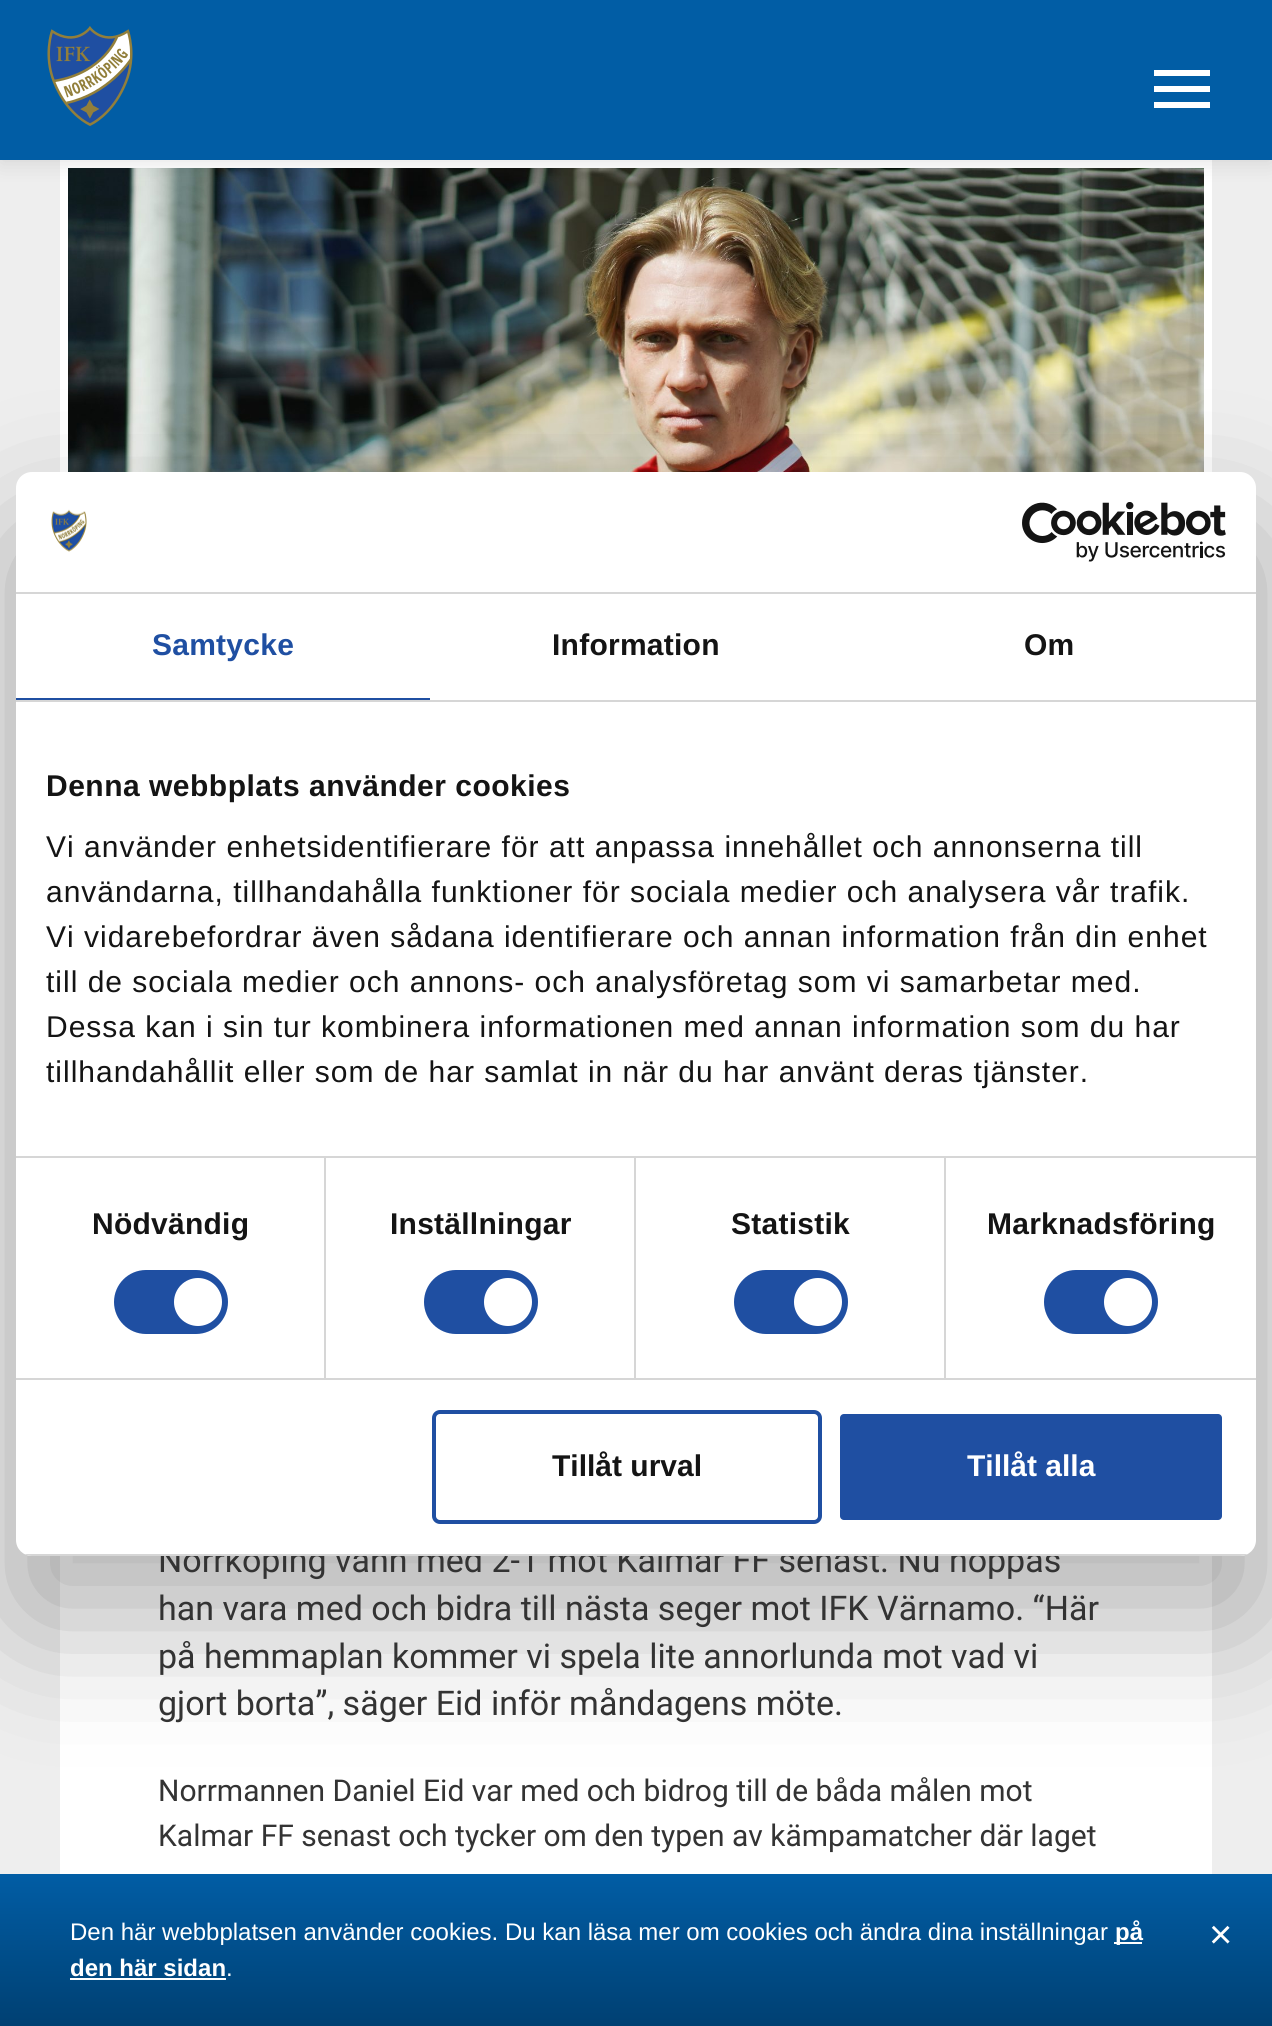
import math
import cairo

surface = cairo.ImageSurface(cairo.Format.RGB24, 1272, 2026)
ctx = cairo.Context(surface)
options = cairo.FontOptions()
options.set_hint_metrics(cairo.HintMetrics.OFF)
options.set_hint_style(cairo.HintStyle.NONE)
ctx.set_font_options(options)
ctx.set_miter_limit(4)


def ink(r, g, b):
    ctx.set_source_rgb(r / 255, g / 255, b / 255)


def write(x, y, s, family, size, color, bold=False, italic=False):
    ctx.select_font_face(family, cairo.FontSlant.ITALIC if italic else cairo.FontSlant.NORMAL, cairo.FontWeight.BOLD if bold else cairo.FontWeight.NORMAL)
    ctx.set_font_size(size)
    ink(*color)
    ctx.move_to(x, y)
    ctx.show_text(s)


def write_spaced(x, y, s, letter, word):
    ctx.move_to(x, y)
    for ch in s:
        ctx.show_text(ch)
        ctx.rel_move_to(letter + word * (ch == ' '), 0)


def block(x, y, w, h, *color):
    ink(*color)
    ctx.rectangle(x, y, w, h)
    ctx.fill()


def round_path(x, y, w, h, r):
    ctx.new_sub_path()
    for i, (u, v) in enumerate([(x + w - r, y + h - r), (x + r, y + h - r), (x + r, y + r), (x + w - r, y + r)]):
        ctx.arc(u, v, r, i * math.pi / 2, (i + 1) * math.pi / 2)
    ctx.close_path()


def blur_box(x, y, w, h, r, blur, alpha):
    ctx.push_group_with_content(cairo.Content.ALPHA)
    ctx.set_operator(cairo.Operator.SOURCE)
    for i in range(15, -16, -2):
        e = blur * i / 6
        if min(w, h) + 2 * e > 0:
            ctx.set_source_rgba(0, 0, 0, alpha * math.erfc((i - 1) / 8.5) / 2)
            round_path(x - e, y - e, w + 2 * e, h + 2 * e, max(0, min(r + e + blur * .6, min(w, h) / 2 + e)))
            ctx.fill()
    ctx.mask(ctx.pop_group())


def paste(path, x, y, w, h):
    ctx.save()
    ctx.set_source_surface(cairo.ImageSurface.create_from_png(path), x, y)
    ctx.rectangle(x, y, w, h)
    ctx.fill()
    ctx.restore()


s1 = dict(family="Roboto", size=34, color=(51, 51, 51))
s2 = dict(family="Liberation Sans", size=30, color=(20, 20, 20), bold=True)
s3 = dict(family="Liberation Sans", size=30, color=(255, 255, 255), bold=True)
s4 = dict(family="Roboto", size=30, color=(51, 51, 51))
s5 = dict(family="Liberation Sans", size=24, color=(255, 255, 255))
s6 = dict(family="Liberation Sans", size=24, color=(255, 255, 255), bold=True)
s7 = dict(family="Liberation Sans", size=40, color=(255, 255, 255))

ink(238, 238, 238)
ctx.paint()
block(60, 160, 1152, 1714, 255, 255, 255)
paste("pic4.png", 68, 168, 1136, 304)
ink(0, 0, 0)
blur_box(0, 4, 1272, 160, 0, 10, 0.1)
block(0, 0, 1272, 160, 1, 93, 165)
paste("pic1.png", 47, 26, 86, 100)
block(1154, 70, 56, 6, 255, 255, 255)
block(1154, 86, 56, 6, 255, 255, 255)
block(1154, 102, 56, 6, 255, 255, 255)
ink(0, 0, 0)
blur_box(16, 536, 1240, 1084, 16, 68, 0.3)
write(158, 1572, "Norrköping vann med 2-1 mot Kalmar FF senast. Nu hoppas", **s1)
ink(255, 255, 255)
round_path(16, 472, 1240, 1084, 16)
ctx.fill()
block(16, 592, 1240, 2, 214, 214, 214)
paste("pic2.png", 51, 509, 36, 43)
paste("pic3.png", 1022, 502, 204, 60)
block(16, 700, 1240, 2, 214, 214, 214)
block(16, 698, 414, 2, 31, 79, 162)
ctx.select_font_face("Liberation Sans", cairo.FontSlant.NORMAL, cairo.FontWeight.BOLD)
ctx.set_font_size(30)
write_spaced(152, 655, "Samtycke", 0.25, 0)
ink(20, 20, 20)
write_spaced(552, 655, "Information", 0.25, 0)
write_spaced(1024, 655, "Om", 0.25, 0)
block(16, 1156, 1240, 2, 214, 214, 214)
ink(20, 20, 20)
write_spaced(46, 796, "Denna webbplats använder cookies", 0.5, 0)
ctx.select_font_face("Liberation Sans")
write_spaced(46, 857, "Vi använder enhetsidentifierare för att anpassa innehållet och annonserna till", 1, 0)
write_spaced(46, 902, "användarna, tillhandahålla funktioner för sociala medier och analysera vår trafik.", 1, 0)
write_spaced(46, 947, "Vi vidarebefordrar även sådana identifierare och annan information från din enhet", 1, 0)
write_spaced(46, 992, "till de sociala medier och annons- och analysföretag som vi samarbetar med.", 1, 0)
write_spaced(46, 1037, "Dessa kan i sin tur kombinera informationen med annan information som du har", 1, 0)
write_spaced(46, 1082, "tillhandahållit eller som de har samlat in när du har använt deras tjänster.", 1, 0)
block(16, 1378, 1240, 2, 214, 214, 214)
block(324, 1158, 2, 220, 214, 214, 214)
ctx.select_font_face("Liberation Sans", cairo.FontSlant.NORMAL, cairo.FontWeight.BOLD)
ink(20, 20, 20)
write_spaced(92, 1234, "Nödvändig", 0.25, 0)
ink(31, 79, 162)
round_path(114, 1270, 114, 64, 32)
ctx.fill()
ink(255, 255, 255)
ctx.arc(198, 1302, 24, 0, 2 * math.pi)
ctx.fill()
block(634, 1158, 2, 220, 214, 214, 214)
ink(20, 20, 20)
write_spaced(390, 1234, "Inställningar", 0.25, 0)
ink(31, 79, 162)
round_path(424, 1270, 114, 64, 32)
ctx.fill()
ink(255, 255, 255)
ctx.arc(508, 1302, 24, 0, 2 * math.pi)
ctx.fill()
block(944, 1158, 2, 220, 214, 214, 214)
ink(20, 20, 20)
write_spaced(731, 1234, "Statistik", 0.25, 0)
ink(31, 79, 162)
round_path(734, 1270, 114, 64, 32)
ctx.fill()
ink(255, 255, 255)
ctx.arc(818, 1302, 24, 0, 2 * math.pi)
ctx.fill()
ink(20, 20, 20)
write_spaced(987, 1234, "Marknadsföring", 0.25, 0)
ink(31, 79, 162)
round_path(1044, 1270, 114, 64, 32)
ctx.fill()
ink(255, 255, 255)
ctx.arc(1128, 1302, 24, 0, 2 * math.pi)
ctx.fill()
ctx.save()
round_path(16, 472, 1240, 1084, 16)
ctx.clip()
block(16, 1554, 1240, 2, 214, 214, 214)
ctx.restore()
round_path(434, 1412, 386, 110, 6)
ink(31, 79, 162)
ctx.set_line_width(4)
ctx.stroke()
write(552, 1476, "Tillåt urval", **s2)
ink(31, 79, 162)
round_path(838, 1412, 386, 110, 6)
ctx.fill_preserve()
ink(255, 255, 255)
ctx.stroke()
write(967, 1476, "Tillåt alla", **s3)
write(158, 1620, "han vara med och bidra till nästa seger mot IFK Värnamo. “Här", **s1)
write(158, 1668, "på hemmaplan kommer vi spela lite annorlunda mot vad vi", **s1)
write(158, 1715, "gjort borta”, säger Eid inför måndagens möte.", **s1)
write(158, 1801, "Norrmannen Daniel Eid var med och bidrog till de båda målen mot", **s4)
write(158, 1846, "Kalmar FF senast och tycker om den typen av kämpamatcher där laget", **s4)
gradient = cairo.LinearGradient(636, 1874, 636, 2026)
gradient.add_color_stop_rgba(0, 0.004, 0.365, 0.647, 1)
gradient.add_color_stop_rgba(1, 0, 0.251, 0.447, 1)
ctx.set_source(gradient)
ctx.rectangle(0, 1874, 1272, 152)
ctx.fill()
write(70, 1940, "Den här webbplatsen använder cookies. Du kan läsa mer om cookies och ändra dina inställningar", **s5)
block(1114, 1942, 28, 2, 255, 255, 255)
write(1115, 1940, "på", **s6)
write(70, 1976, "den här sidan", **s6)
block(70, 1978, 156, 2, 255, 255, 255)
write(226, 1976, ".", **s5)
write(1209, 1948, "×", **s7)
surface.write_to_png("screenshot.png")
